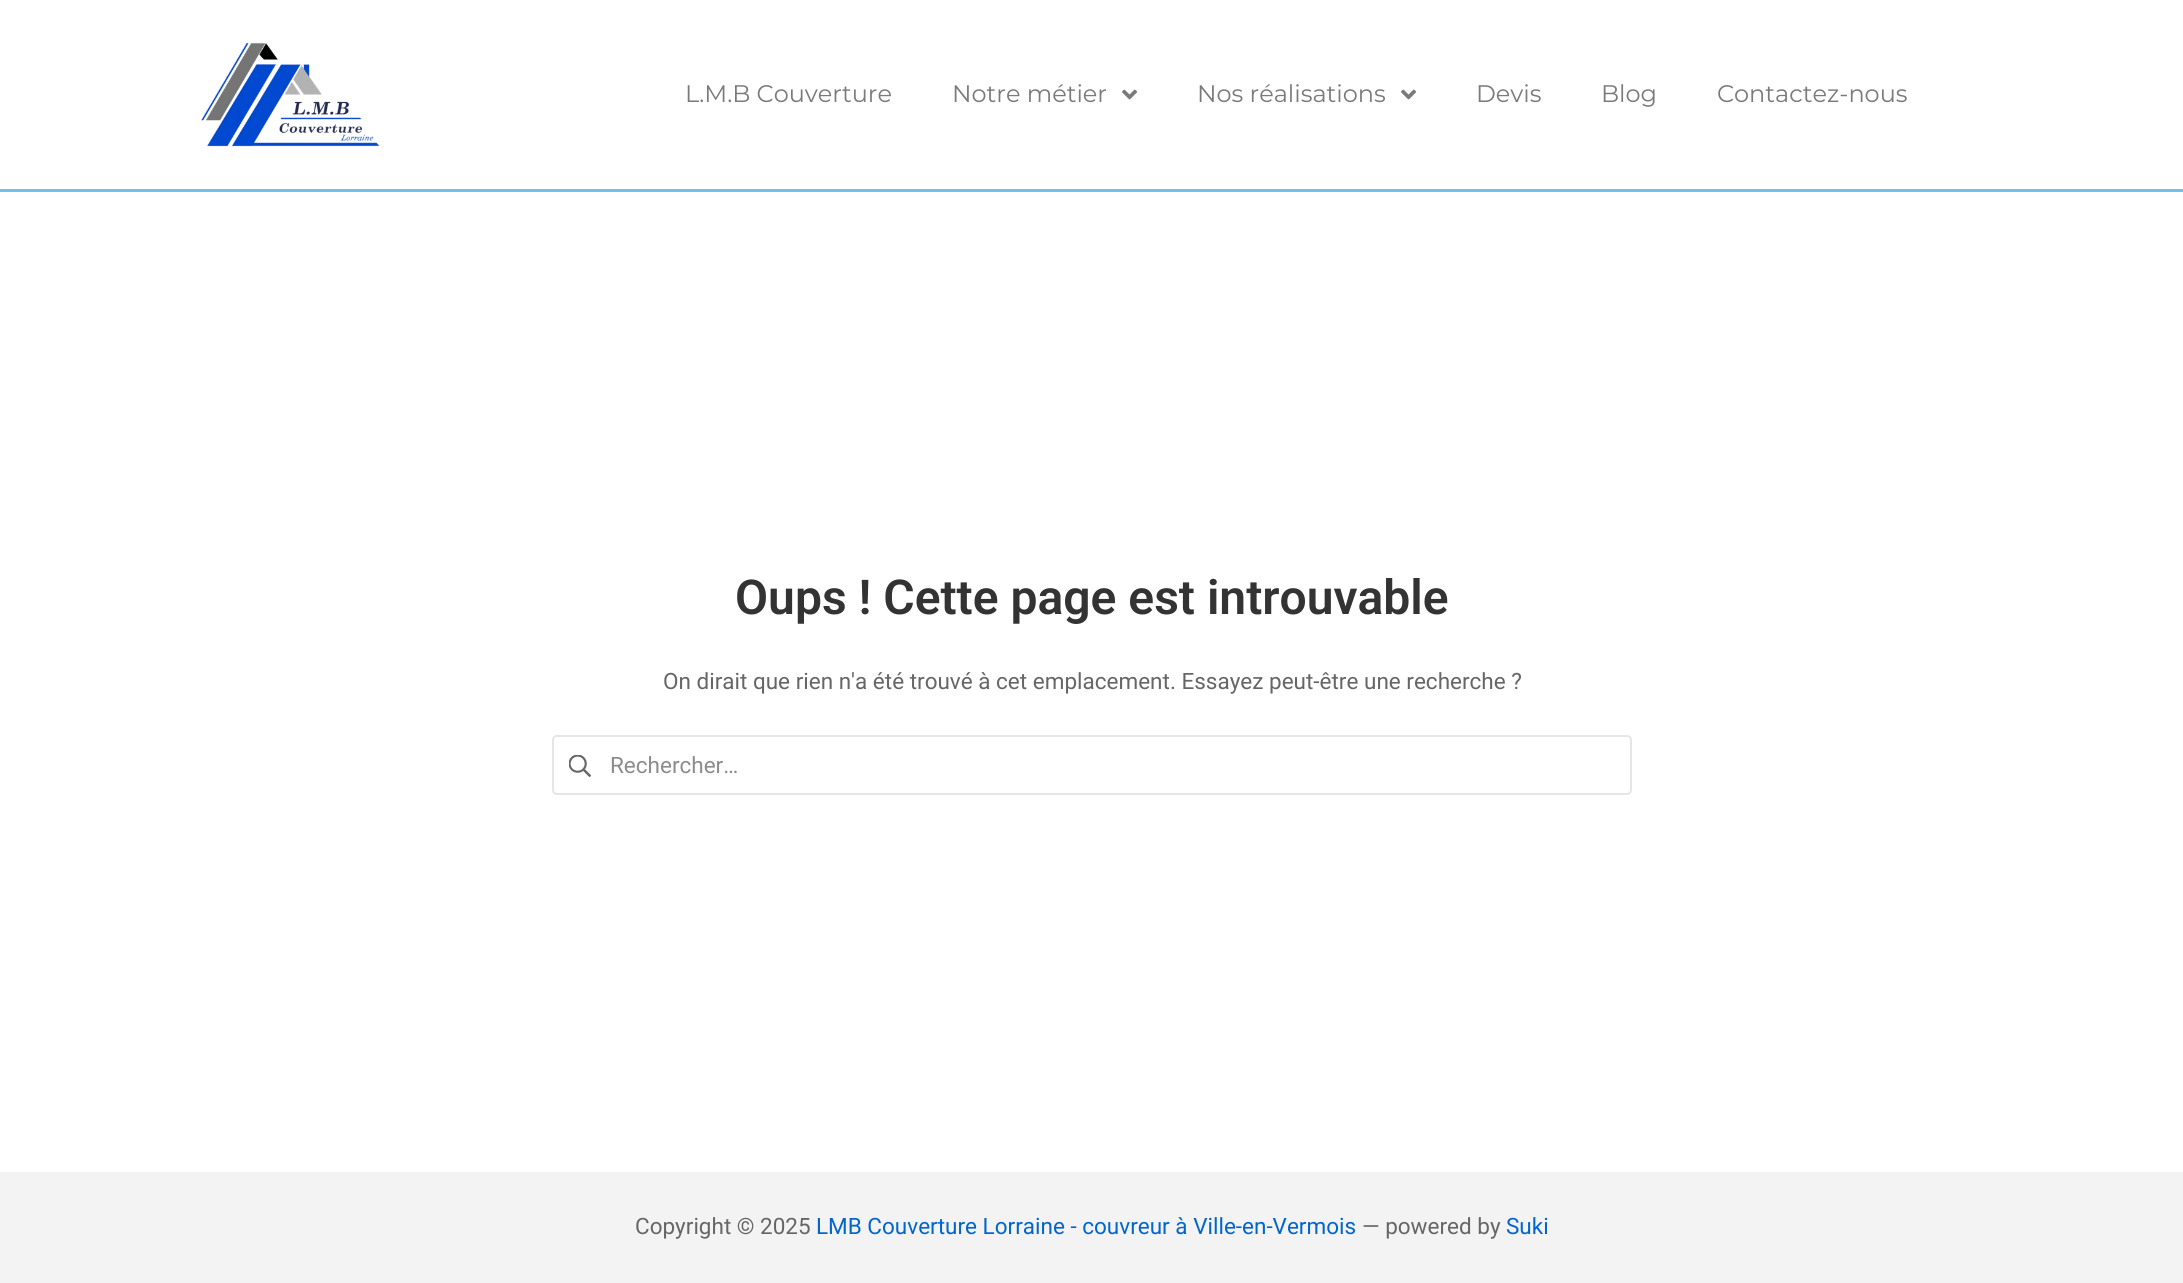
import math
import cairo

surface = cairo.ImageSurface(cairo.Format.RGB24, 2183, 1283)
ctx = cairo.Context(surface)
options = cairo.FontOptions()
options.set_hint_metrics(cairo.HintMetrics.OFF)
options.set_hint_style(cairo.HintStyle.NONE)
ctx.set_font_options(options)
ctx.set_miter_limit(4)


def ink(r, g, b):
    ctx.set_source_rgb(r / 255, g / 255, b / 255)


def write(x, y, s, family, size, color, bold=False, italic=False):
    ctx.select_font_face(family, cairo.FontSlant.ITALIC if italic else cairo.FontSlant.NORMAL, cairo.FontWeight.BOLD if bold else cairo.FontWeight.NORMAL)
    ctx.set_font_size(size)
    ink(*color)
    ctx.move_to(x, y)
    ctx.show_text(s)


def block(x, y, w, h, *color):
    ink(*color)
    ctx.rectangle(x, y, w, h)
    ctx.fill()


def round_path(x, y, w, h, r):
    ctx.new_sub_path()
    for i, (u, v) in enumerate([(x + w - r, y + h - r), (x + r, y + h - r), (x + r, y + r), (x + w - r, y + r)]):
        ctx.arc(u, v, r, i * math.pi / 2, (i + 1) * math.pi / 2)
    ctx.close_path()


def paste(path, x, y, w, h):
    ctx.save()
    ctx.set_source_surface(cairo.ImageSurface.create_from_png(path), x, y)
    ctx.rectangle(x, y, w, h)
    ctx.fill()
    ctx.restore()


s1 = dict(family="Montserrat", size=24, color=(122, 122, 122))
s2 = dict(family="Roboto SemiBold", size=48, color=(51, 51, 51))
s3 = dict(family="Roboto", size=22.5, color=(102, 102, 102))
s4 = dict(family="Roboto", size=22.5, color=(140, 140, 140))
s5 = dict(family="Roboto", size=22.5, color=(0, 102, 204))

ink(255, 255, 255)
ctx.paint()
block(0, 189, 2183, 3, 110, 193, 228)
paste("pic1.png", 201, 42, 178, 105)
write(685, 102, "L.M.B Couverture", **s1)
write(952, 102, "Notre métier", **s1)
paste("pic2.png", 1122, 89, 15, 11)
write(1197, 102, "Nos réalisations", **s1)
paste("pic2.png", 1401, 89, 15, 11)
write(1476, 102, "Devis", **s1)
write(1601, 102, "Blog", **s1)
write(1717, 102, "Contactez-nous", **s1)
write(735, 614, "Oups ! Cette page est introuvable", **s2)
write(663, 689, "On dirait que rien n'a été trouvé à cet emplacement. Essayez peut-être une recherche ?", **s3)
round_path(553, 736, 1078, 58, 4)
ink(230, 230, 230)
ctx.stroke()
paste("pic3.png", 569, 755, 22, 22)
write(610, 773, "Rechercher…", **s4)
block(0, 1172, 2183, 111, 243, 243, 243)
write(635, 1234, "Copyright © 2025", **s3)
write(816, 1234, "LMB Couverture Lorraine - couvreur à Ville-en-Vermois", **s5)
write(1362, 1234, "— powered by", **s3)
write(1506, 1234, "Suki", **s5)
surface.write_to_png("screenshot.png")
